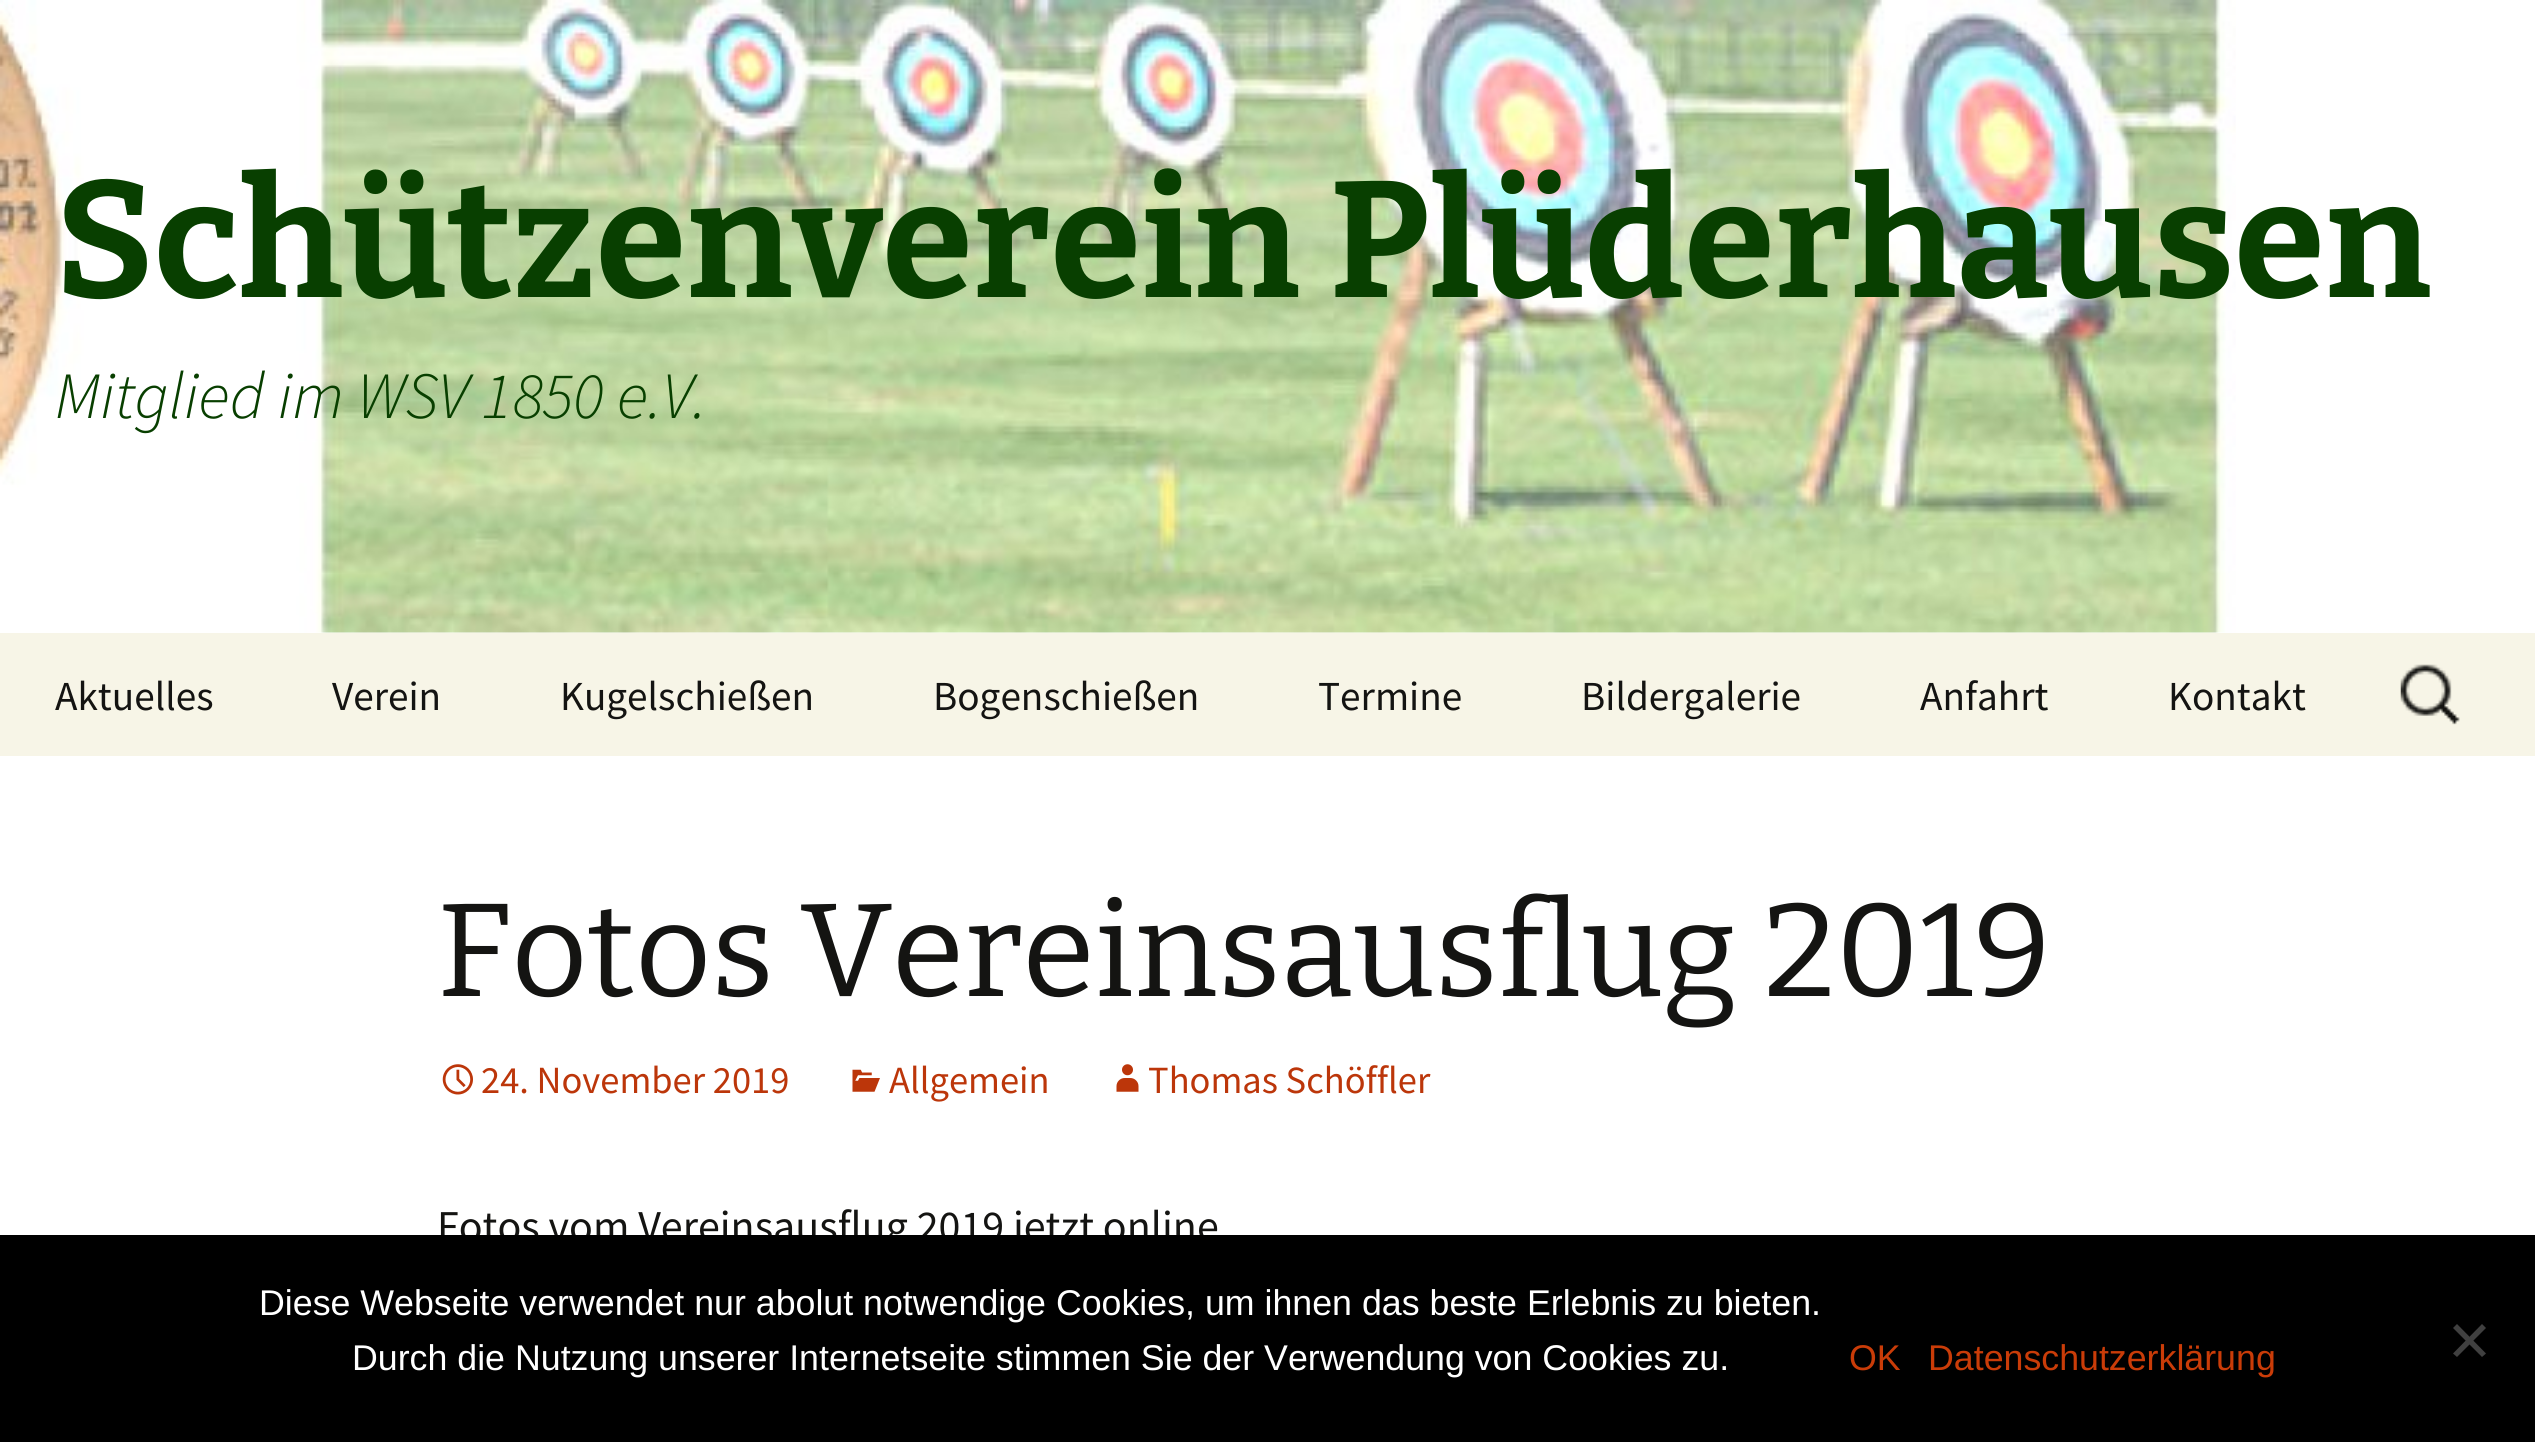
import math
import cairo

surface = cairo.ImageSurface(cairo.Format.RGB24, 2535, 1442)
ctx = cairo.Context(surface)
options = cairo.FontOptions()
options.set_hint_metrics(cairo.HintMetrics.OFF)
options.set_hint_style(cairo.HintStyle.NONE)
ctx.set_font_options(options)
ctx.set_miter_limit(4)


def ink(r, g, b):
    ctx.set_source_rgb(r / 255, g / 255, b / 255)


def write(x, y, s, family, size, color, bold=False, italic=False):
    ctx.select_font_face(family, cairo.FontSlant.ITALIC if italic else cairo.FontSlant.NORMAL, cairo.FontWeight.BOLD if bold else cairo.FontWeight.NORMAL)
    ctx.set_font_size(size)
    ink(*color)
    ctx.move_to(x, y)
    ctx.show_text(s)


def block(x, y, w, h, *color):
    ink(*color)
    ctx.rectangle(x, y, w, h)
    ctx.fill()


def paste(path, x, y, w, h):
    ctx.save()
    ctx.set_source_surface(cairo.ImageSurface.create_from_png(path), x, y)
    ctx.rectangle(x, y, w, h)
    ctx.fill()
    ctx.restore()


s1 = dict(family="Bitter Thin", size=165, color=(8, 63, 0))
s2 = dict(family="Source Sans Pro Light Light", size=66, color=(8, 63, 0), italic=True)
s3 = dict(family="Source Sans Pro", size=41.25, color=(20, 20, 18))
s4 = dict(family="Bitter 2 Thin", size=132, color=(20, 20, 18))
s5 = dict(family="Source Sans Pro", size=38.5, color=(188, 54, 10))
s6 = dict(family="Source Sans Pro", size=44, color=(20, 20, 18))
s7 = dict(family="Liberation Sans", size=35.75, color=(255, 255, 255))
s8 = dict(family="Liberation Sans", size=35.75, color=(202, 60, 8))

ink(255, 255, 255)
ctx.paint()
paste("pic1.png", 0, 0, 2236, 633)
write(55, 297, "Schützenverein Plüderhausen", **s1)
write(55, 418, "Mitglied im WSV 1850 e.V.", **s2)
block(0, 633, 2535, 123, 247, 245, 231)
write(55, 710, "Aktuelles", **s3)
write(332, 710, "Verein", **s3)
write(560, 710, "Kugelschießen", **s3)
write(933, 710, "Bogenschießen", **s3)
write(1318, 710, "Termine", **s3)
write(1581, 710, "Bildergalerie", **s3)
write(1920, 710, "Anfahrt", **s3)
write(2168, 710, "Kontakt", **s3)
paste("pic2.png", 2400, 664, 60, 61)
write(437, 996, "Fotos Vereinsausflug 2019", **s4)
paste("pic3.png", 442, 1064, 31, 31)
write(481, 1093, "24. November 2019", **s5)
paste("pic4.png", 852, 1069, 28, 23)
write(889, 1093, "Allgemein", **s5)
paste("pic5.png", 1116, 1064, 23, 28)
write(1148, 1093, "Thomas Schöffler", **s5)
write(437, 1241, "Fotos vom Vereinsausflug 2019 jetzt online", **s6)
block(0, 1235, 2535, 207, 0, 0, 0)
write(259, 1315, "Diese Webseite verwendet nur abolut notwendige Cookies, um ihnen das beste Erlebnis zu bieten.", **s7)
write(352, 1370, "Durch die Nutzung unserer Internetseite stimmen Sie der Verwendung von Cookies zu.", **s7)
ink(64, 64, 64)
ctx.new_path()
ctx.move_to(2482, 1324)
ctx.line_to(2486, 1328)
ctx.line_to(2457, 1357)
ctx.line_to(2453, 1353.5)
ctx.close_path()
ctx.fill()
ctx.new_path()
ctx.move_to(2453, 1328)
ctx.line_to(2457, 1324)
ctx.line_to(2486, 1353.5)
ctx.line_to(2482, 1357)
ctx.close_path()
ctx.fill()
write(1849, 1370, "OK", **s8)
write(1928, 1370, "Datenschutzerklärung", **s8)
surface.write_to_png("screenshot.png")
